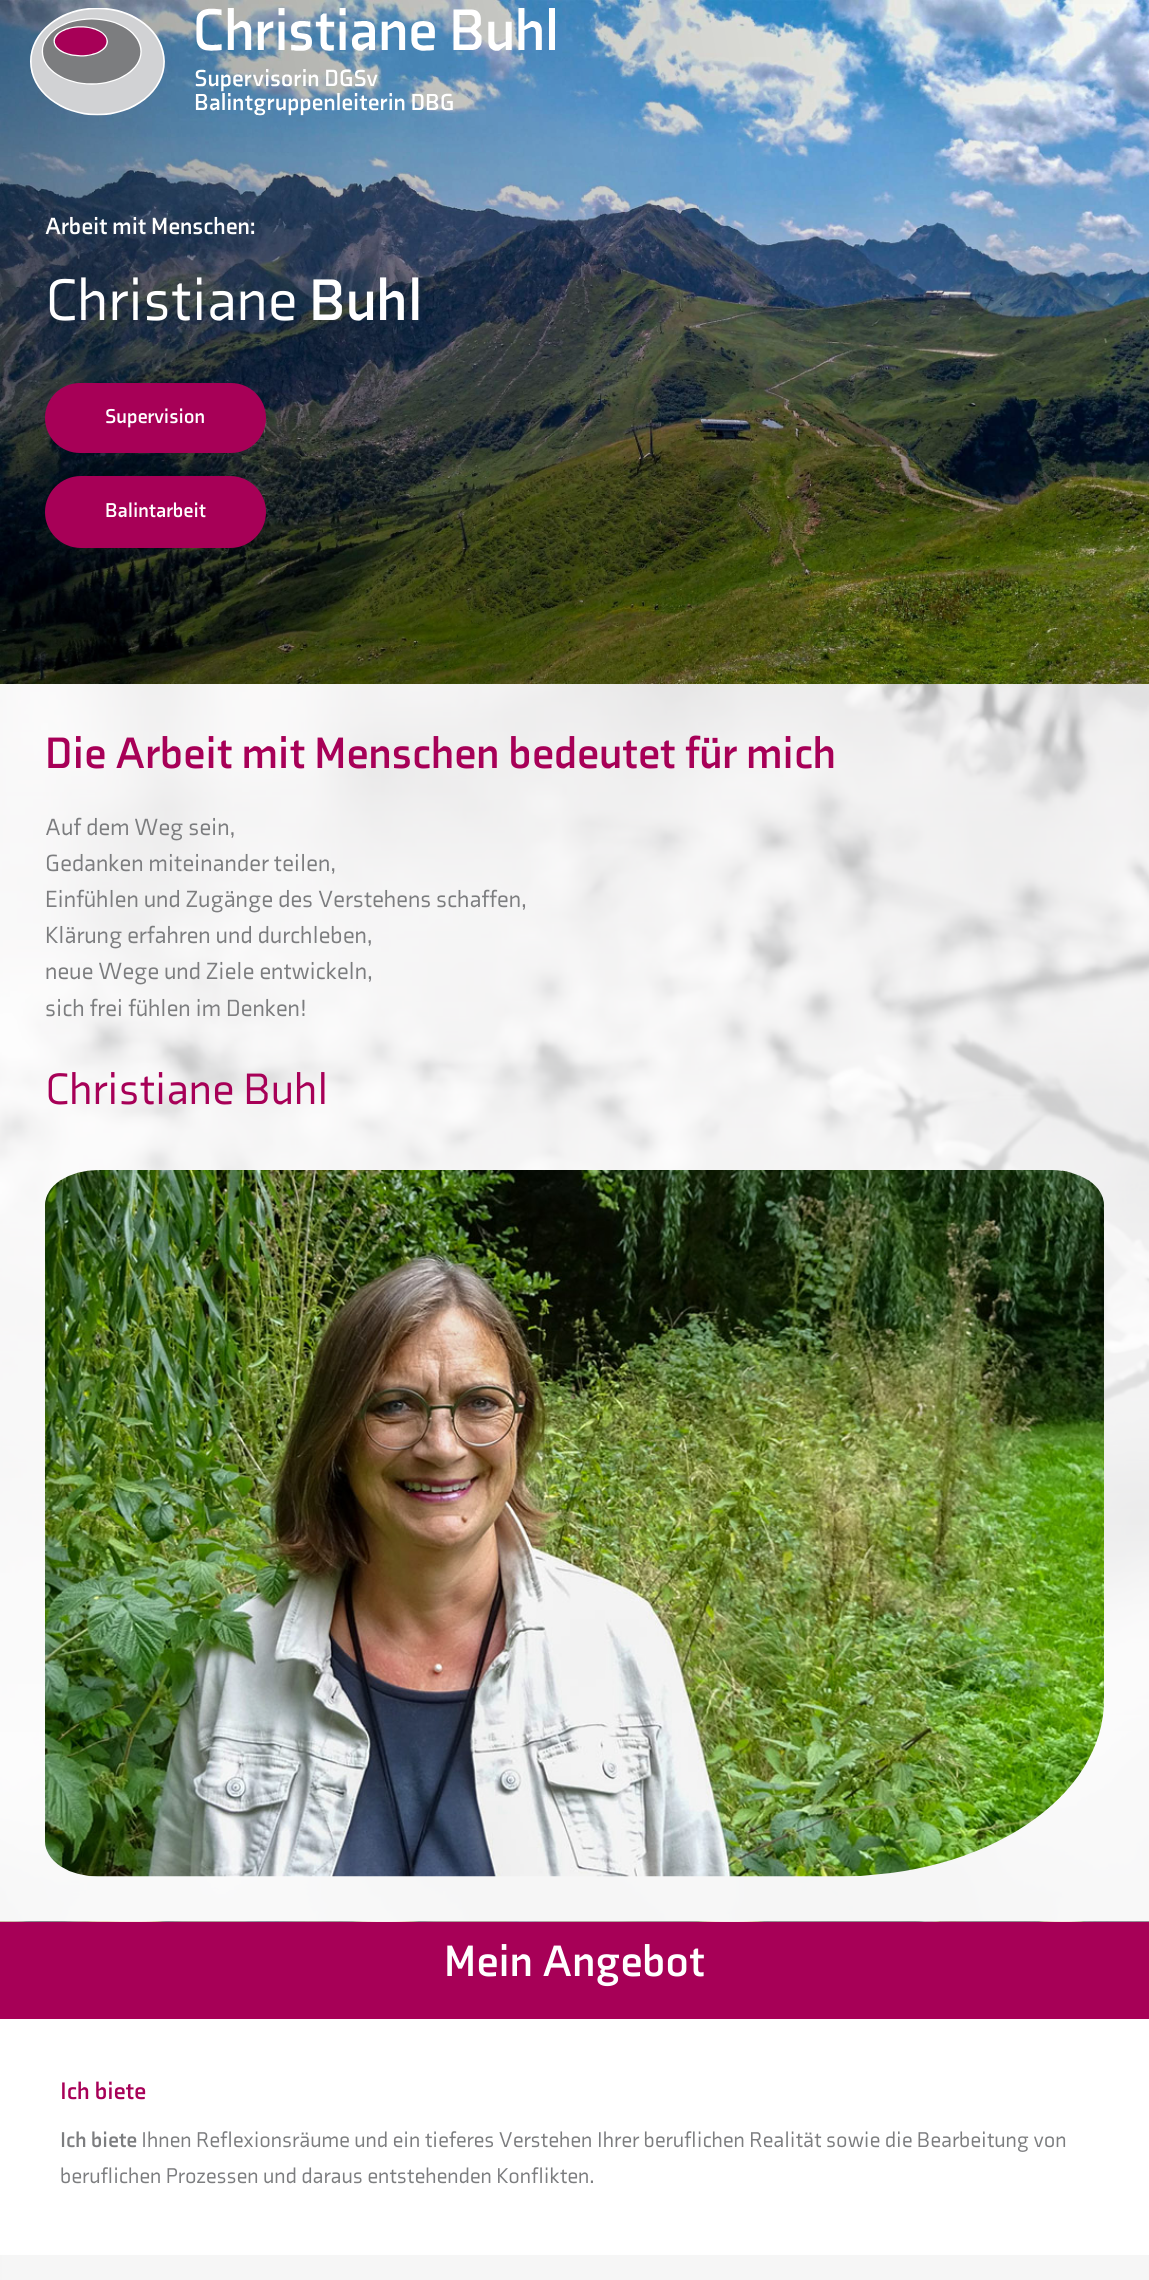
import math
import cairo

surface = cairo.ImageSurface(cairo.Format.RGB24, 1149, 2280)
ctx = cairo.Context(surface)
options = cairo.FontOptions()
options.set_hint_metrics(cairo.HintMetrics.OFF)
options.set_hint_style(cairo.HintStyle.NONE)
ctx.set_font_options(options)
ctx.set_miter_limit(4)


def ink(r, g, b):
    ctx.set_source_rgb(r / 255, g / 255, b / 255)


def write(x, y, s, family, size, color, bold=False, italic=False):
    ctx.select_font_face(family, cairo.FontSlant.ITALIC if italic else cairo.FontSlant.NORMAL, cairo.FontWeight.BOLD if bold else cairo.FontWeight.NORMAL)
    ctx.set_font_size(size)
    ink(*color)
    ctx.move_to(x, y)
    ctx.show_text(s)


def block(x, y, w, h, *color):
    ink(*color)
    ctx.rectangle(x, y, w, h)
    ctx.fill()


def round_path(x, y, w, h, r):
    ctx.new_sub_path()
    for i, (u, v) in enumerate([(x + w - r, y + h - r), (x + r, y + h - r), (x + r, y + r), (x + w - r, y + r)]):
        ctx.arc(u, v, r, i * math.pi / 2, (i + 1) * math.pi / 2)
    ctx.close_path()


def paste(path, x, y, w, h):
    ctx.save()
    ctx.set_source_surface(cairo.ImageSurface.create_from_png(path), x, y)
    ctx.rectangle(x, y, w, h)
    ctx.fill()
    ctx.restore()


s1 = dict(family="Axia", size=24, color=(255, 255, 255), bold=True)
s2 = dict(family="Axia", size=60, color=(255, 255, 255))
s3 = dict(family="Axia", size=60, color=(255, 255, 255), bold=True)
s4 = dict(family="Axia", size=20.5, color=(255, 255, 255), bold=True)
s5 = dict(family="Axia", size=45, color=(167, 0, 87), bold=True)
s6 = dict(family="Axia", size=24, color=(124, 125, 127))
s7 = dict(family="Axia", size=45, color=(167, 0, 87))
s8 = dict(family="Axia", size=45, color=(255, 255, 255), bold=True)
s9 = dict(family="Axia", size=24.5, color=(167, 0, 87), bold=True)
s10 = dict(family="Axia", size=21.9, color=(124, 125, 127), bold=True)
s11 = dict(family="Axia", size=21.9, color=(124, 125, 127))

ink(255, 255, 255)
ctx.paint()
paste("pic2.png", 0, 0, 1149, 684)
paste("pic1.png", 30, 8, 525, 108)
write(45, 234, "Arbeit mit Menschen:", **s1)
write(45, 320, "Christiane", **s2)
write(309, 320, "Buhl", **s3)
ink(167, 0, 87)
round_path(45, 383, 221, 70, 35)
ctx.fill()
write(105, 423, "Supervision", **s4)
ink(167, 0, 87)
round_path(45, 476, 221, 72, 36)
ctx.fill()
write(105, 517, "Balintarbeit", **s4)
paste("pic3.png", 0, 684, 1149, 1238)
gradient = cairo.LinearGradient(574, 684, 575, 1922)
gradient.add_color_stop_rgba(0, 1, 1, 1, 0.7)
gradient.add_color_stop_rgba(0.85, 1, 1, 1, 0.96)
ctx.set_source(gradient)
ctx.rectangle(0, 684, 1149, 1238)
ctx.fill()
write(45, 768, "Die Arbeit mit Menschen bedeutet für mich", **s5)
write(45, 835, "Auf dem Weg sein,", **s6)
write(45, 871, "Gedanken miteinander teilen,", **s6)
write(45, 907, "Einfühlen und Zugänge des Verstehens schaffen,", **s6)
write(45, 943, "Klärung erfahren und durchleben,", **s6)
write(45, 979, "neue Wege und Ziele entwickeln,", **s6)
write(45, 1016, "sich frei fühlen im Denken!", **s6)
write(45, 1104, "Christiane Buhl", **s7)
paste("pic4.png", 45, 1170, 1059, 707)
paste("pic5.png", 0, 1921, 1149, 1)
block(0, 1922, 1149, 97, 167, 0, 87)
write(444, 1976, "Mein Angebot", **s8)
write(60, 2099, "Ich biete", **s9)
write(60, 2147, "Ich biete", **s10)
write(141, 2147, "Ihnen Reflexionsräume und ein tieferes Verstehen Ihrer beruflichen Realität sowie die Bearbeitung von", **s11)
write(60, 2183, "beruflichen Prozessen und daraus entstehenden Konflikten.", **s11)
block(2, 2255, 1146, 25, 246, 246, 246)
block(1148, 2255, 1, 25, 245, 245, 245)
block(0, 2255, 2, 25, 245, 245, 245)
surface.write_to_png("screenshot.png")
